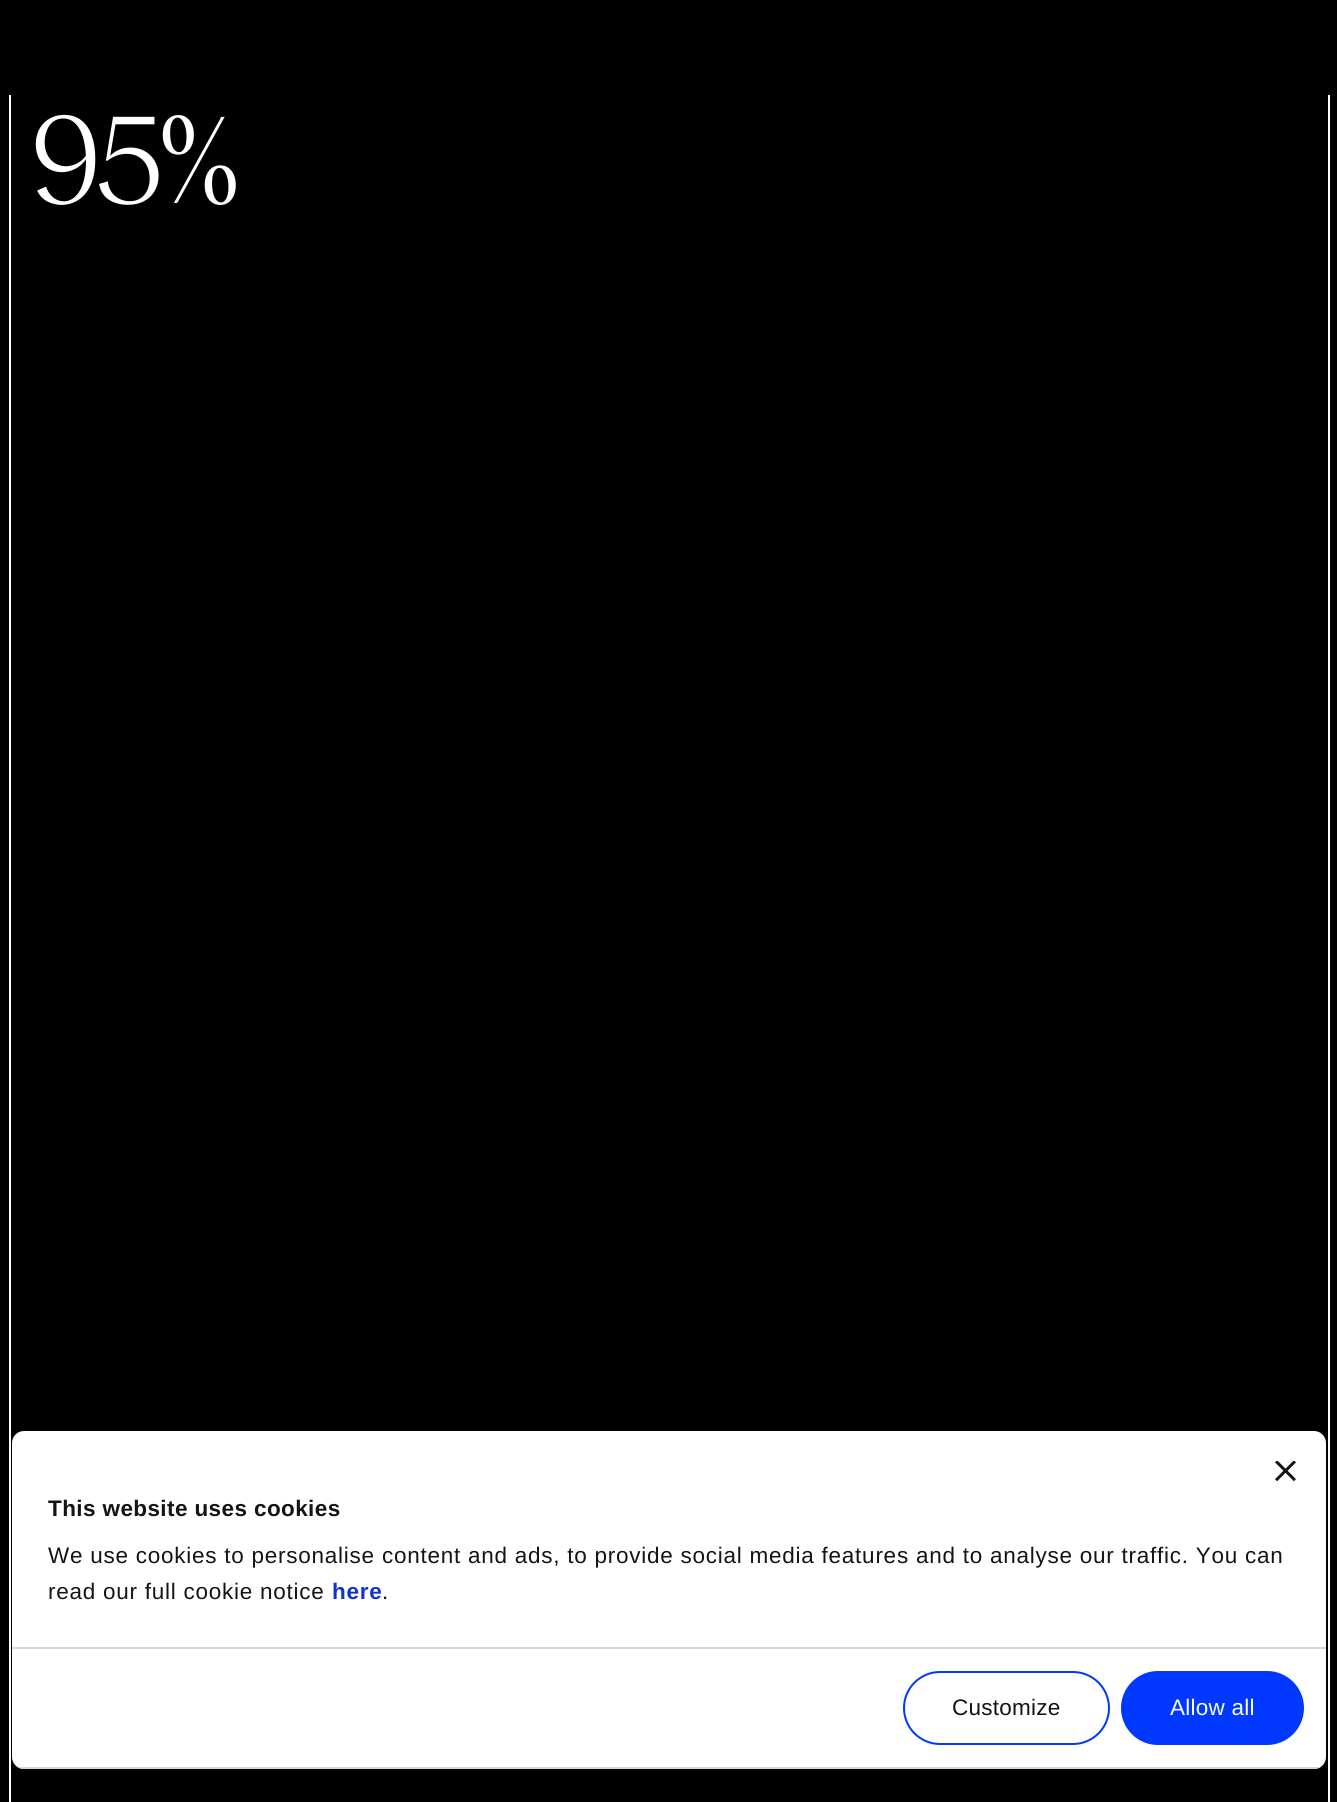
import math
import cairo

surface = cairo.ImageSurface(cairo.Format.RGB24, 1337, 1802)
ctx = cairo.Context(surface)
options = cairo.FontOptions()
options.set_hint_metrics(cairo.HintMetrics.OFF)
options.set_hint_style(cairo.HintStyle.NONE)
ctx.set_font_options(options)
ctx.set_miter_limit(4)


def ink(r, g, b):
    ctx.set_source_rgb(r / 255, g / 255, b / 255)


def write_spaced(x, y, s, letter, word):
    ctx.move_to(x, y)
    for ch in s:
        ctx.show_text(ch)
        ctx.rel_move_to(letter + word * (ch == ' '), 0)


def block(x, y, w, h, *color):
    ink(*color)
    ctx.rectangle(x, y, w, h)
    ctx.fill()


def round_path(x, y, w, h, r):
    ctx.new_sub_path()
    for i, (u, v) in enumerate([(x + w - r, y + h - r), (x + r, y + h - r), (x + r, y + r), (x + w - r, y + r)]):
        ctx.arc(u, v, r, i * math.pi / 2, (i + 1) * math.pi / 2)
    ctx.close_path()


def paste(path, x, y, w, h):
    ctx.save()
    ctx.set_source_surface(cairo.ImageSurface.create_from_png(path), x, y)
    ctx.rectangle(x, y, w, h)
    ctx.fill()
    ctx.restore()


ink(0, 0, 0)
ctx.paint()
block(9, 95, 2, 1707, 255, 255, 255)
ctx.select_font_face("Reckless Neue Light")
ctx.set_font_size(129)
write_spaced(30, 203, "95%", -6.5, 0)
block(1328, 95, 2, 1707, 255, 255, 255)
round_path(12, 1431, 1314, 338, 12)
ctx.fill()
paste("pic1.png", 1275, 1461, 21, 21)
block(12, 1647, 1314, 2, 214, 214, 214)
ctx.select_font_face("Liberation Sans", cairo.FontSlant.NORMAL, cairo.FontWeight.BOLD)
ctx.set_font_size(22.5)
ink(20, 20, 20)
write_spaced(48, 1516, "This website uses cookies", 0.4, 0)
ctx.select_font_face("Liberation Sans")
write_spaced(48, 1563, "We use cookies to personalise content and ads, to provide social media features and to analyse our traffic. You can", 0.75, 0)
write_spaced(48, 1599, "read our full cookie notice", 0.75, 0)
ctx.select_font_face("Liberation Sans", cairo.FontSlant.NORMAL, cairo.FontWeight.BOLD)
ink(16, 50, 207)
write_spaced(332, 1599, "here", 0.75, 0)
ctx.select_font_face("Liberation Sans")
ink(20, 20, 20)
write_spaced(382, 1599, ".", 0.75, 0)
ctx.save()
round_path(12, 1431, 1314, 338, 12)
ctx.clip()
block(12, 1767, 1314, 2, 214, 214, 214)
ctx.restore()
round_path(904, 1672, 205, 72, 36)
ink(0, 56, 255)
ctx.stroke()
ink(20, 20, 20)
write_spaced(952, 1715, "Customize", 0.25, 0)
ink(0, 56, 255)
round_path(1122, 1672, 181, 72, 36)
ctx.fill_preserve()
ctx.stroke()
ink(255, 255, 255)
write_spaced(1170, 1715, "Allow all", 0.25, 0)
surface.write_to_png("screenshot.png")
